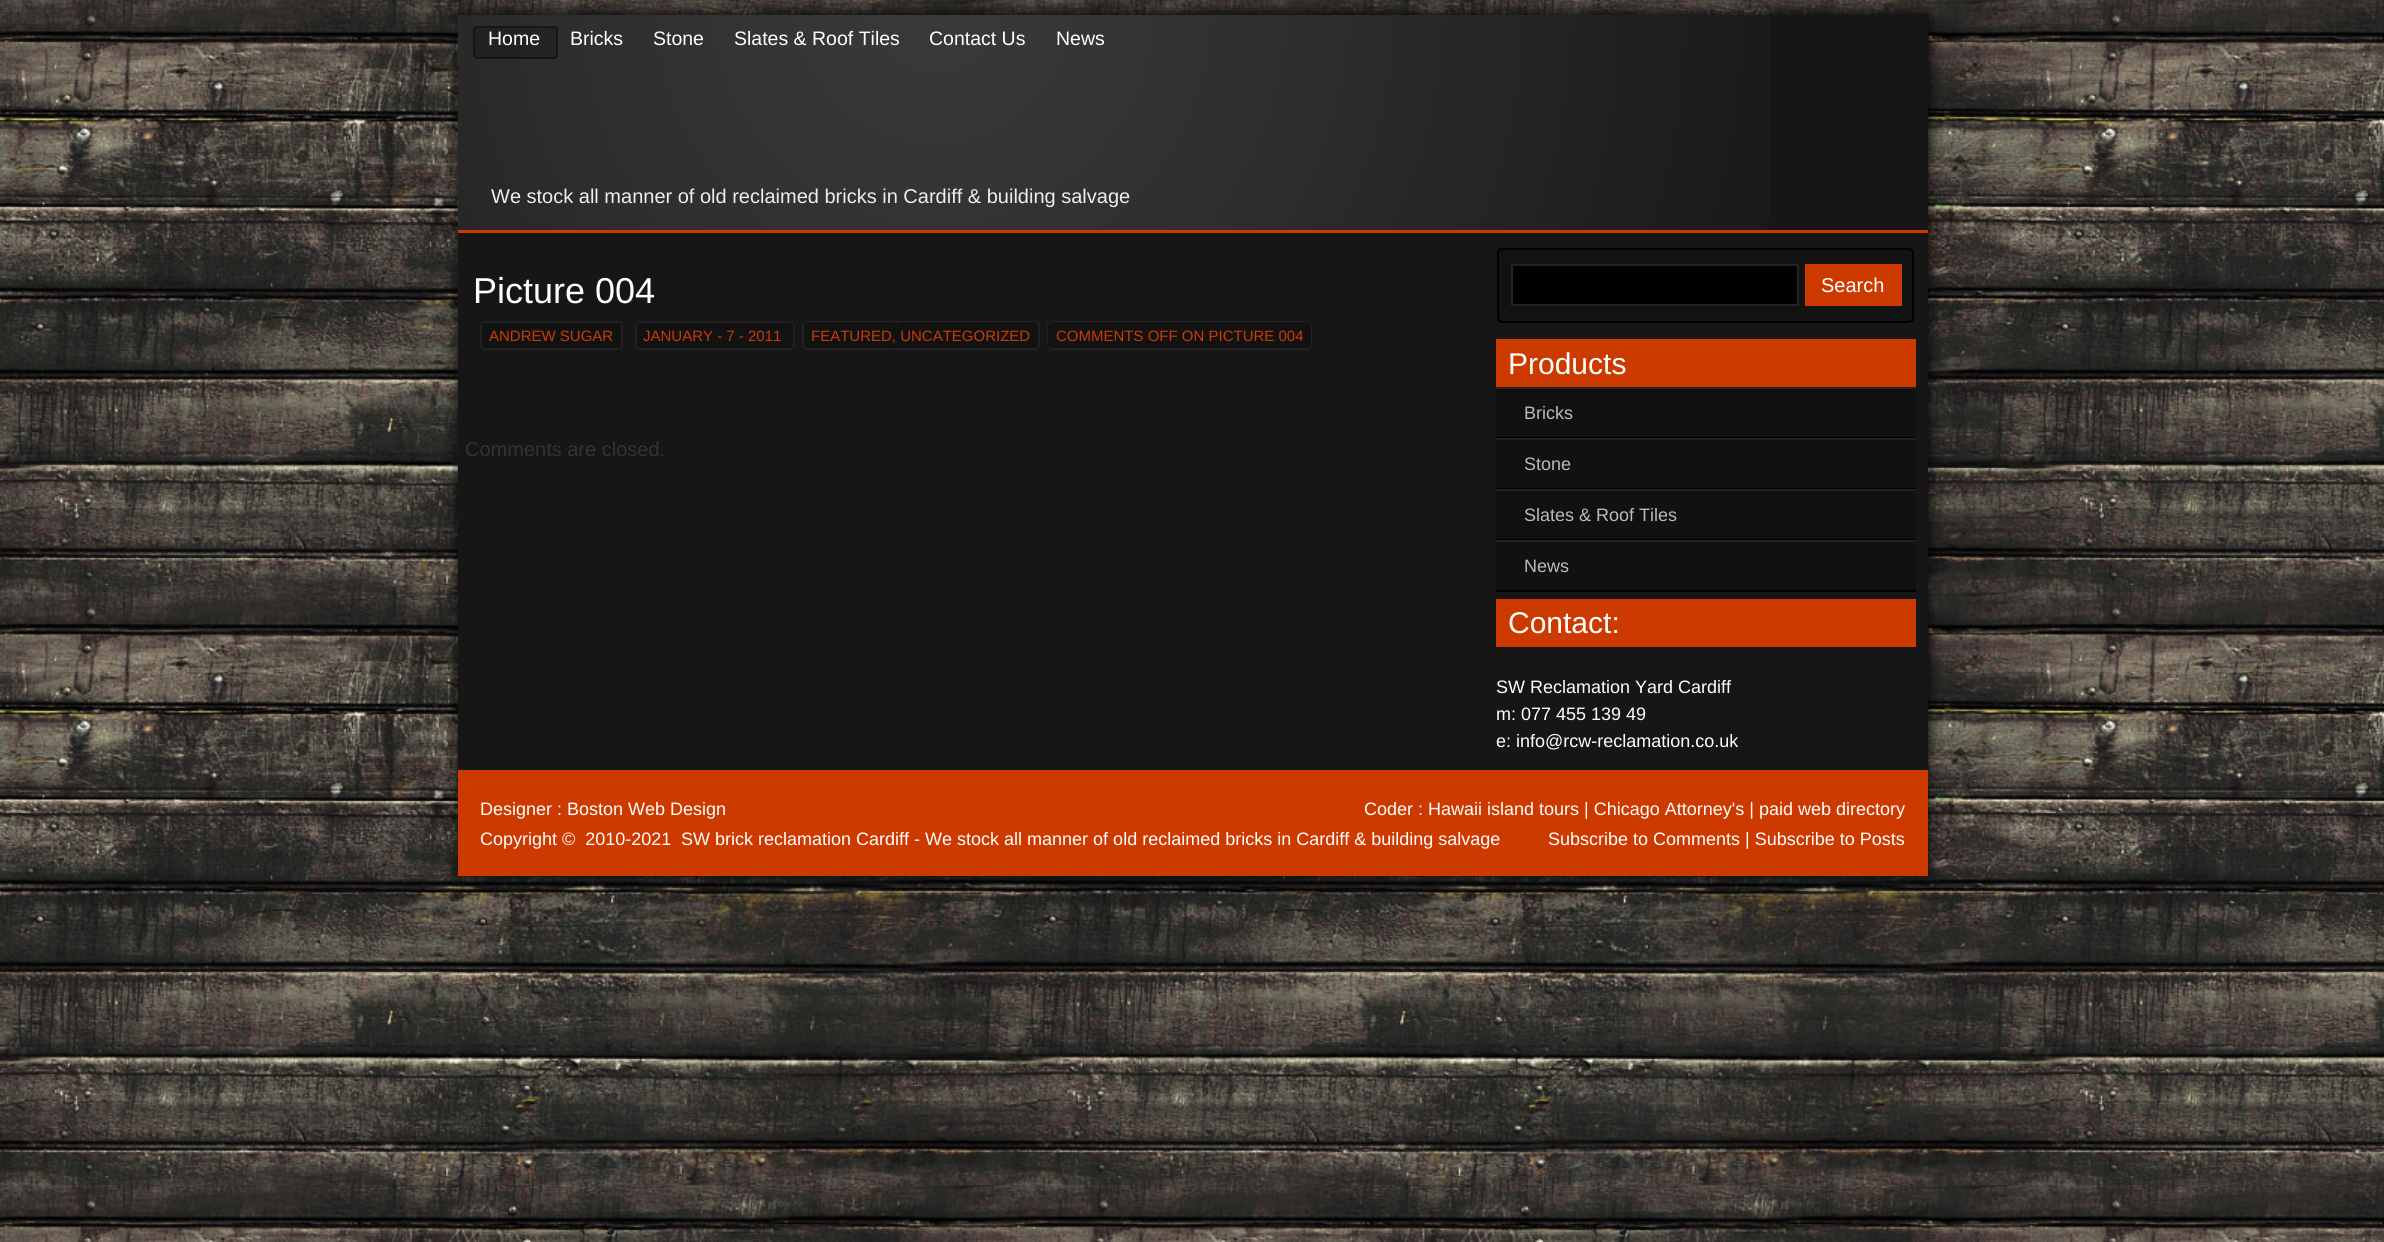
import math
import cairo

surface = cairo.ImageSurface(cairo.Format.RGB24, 2384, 1242)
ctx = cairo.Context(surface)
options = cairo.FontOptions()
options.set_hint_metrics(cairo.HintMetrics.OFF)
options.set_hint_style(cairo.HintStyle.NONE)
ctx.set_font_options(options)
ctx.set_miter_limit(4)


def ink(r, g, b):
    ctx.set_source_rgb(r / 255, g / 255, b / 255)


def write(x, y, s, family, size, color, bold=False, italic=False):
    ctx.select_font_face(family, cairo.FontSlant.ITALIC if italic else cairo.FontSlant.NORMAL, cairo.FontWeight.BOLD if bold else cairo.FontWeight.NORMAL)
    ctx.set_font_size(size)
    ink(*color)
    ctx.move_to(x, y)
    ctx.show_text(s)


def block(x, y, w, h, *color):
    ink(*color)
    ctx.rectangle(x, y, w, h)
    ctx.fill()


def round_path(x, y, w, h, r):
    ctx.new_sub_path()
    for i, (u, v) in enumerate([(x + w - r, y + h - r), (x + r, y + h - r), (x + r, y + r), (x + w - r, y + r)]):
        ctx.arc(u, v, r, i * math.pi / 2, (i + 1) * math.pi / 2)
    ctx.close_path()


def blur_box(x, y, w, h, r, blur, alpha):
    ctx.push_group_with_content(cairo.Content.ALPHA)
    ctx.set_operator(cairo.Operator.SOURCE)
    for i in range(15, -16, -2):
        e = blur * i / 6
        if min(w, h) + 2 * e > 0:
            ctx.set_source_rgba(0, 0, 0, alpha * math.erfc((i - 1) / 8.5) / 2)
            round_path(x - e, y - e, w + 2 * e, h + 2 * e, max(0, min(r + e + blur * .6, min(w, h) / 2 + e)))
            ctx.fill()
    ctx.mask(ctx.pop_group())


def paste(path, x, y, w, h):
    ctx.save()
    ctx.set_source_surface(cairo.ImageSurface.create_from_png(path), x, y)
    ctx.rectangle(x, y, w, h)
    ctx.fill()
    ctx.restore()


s1 = dict(family="Liberation Sans", size=19.5, color=(255, 255, 255))
s2 = dict(family="Liberation Sans", size=20, color=(238, 238, 238))
s3 = dict(family="Liberation Sans", size=36, color=(255, 255, 255))
s4 = dict(family="Liberation Sans", size=15, color=(205, 58, 0))
s5 = dict(family="Liberation Sans", size=20, color=(51, 51, 51))
s6 = dict(family="Liberation Sans", size=20, color=(255, 255, 255))
s7 = dict(family="Liberation Sans", size=30, color=(255, 255, 255))
s8 = dict(family="Liberation Sans", size=18, color=(187, 187, 187))
s9 = dict(family="Liberation Sans", size=18, color=(255, 255, 255))

ink(255, 255, 255)
ctx.paint()
paste("pic1.png", 0, 0, 2384, 1242)
ink(0, 0, 0)
blur_box(458, 15, 1470, 861, 0, 7.5, 1)
block(458, 15, 1470, 215, 22, 22, 22)
paste("pic2.png", 457, 15, 1312, 478)
ctx.set_source_rgba(0, 0, 0, 0.2)
ctx.rectangle(473, 26, 85, 32)
ctx.fill()
round_path(474, 27, 83, 31, 4)
ink(22, 22, 22)
ctx.stroke()
write(570, 45, "Bricks", **s1)
write(734, 45, "Slates & Roof Tiles", **s1)
write(488, 45, "Home", **s1)
write(653, 45, "Stone", **s1)
write(929, 45, "Contact Us", **s1)
write(1056, 45, "News", **s1)
write(491, 203, "We stock all manner of old reclaimed bricks in Cardiff & building salvage", **s2)
block(458, 233, 1470, 537, 22, 22, 22)
block(458, 230, 1470, 3, 205, 58, 0)
write(473, 303, "Picture 004", **s3)
paste("pic3.png", 480, 321, 142, 28)
paste("pic4.png", 635, 321, 160, 28)
paste("pic5.png", 1047, 321, 265, 28)
round_path(481, 322, 141, 27, 4)
ink(33, 33, 33)
ctx.stroke()
write(489, 341, "ANDREW SUGAR", **s4)
round_path(636, 322, 158, 27, 4)
ink(33, 33, 33)
ctx.stroke()
write(643, 341, "JANUARY - 7 - 2011", **s4)
block(803, 321, 236, 28, 18, 18, 18)
ink(33, 33, 33)
ctx.set_fill_rule(cairo.FillRule.EVEN_ODD)
ctx.new_path()
ctx.move_to(807, 321)
ctx.line_to(892, 321)
ctx.line_to(892, 350)
ctx.line_to(807, 350)
ctx.curve_to(805, 350, 802, 347, 802, 345)
ctx.line_to(802, 326)
ctx.curve_to(802, 323, 805, 321, 807, 321)
ctx.close_path()
ctx.move_to(807, 322)
ctx.line_to(892, 322)
ctx.line_to(892, 348)
ctx.line_to(807, 348)
ctx.curve_to(805, 348, 804, 347, 804, 345)
ctx.line_to(804, 326)
ctx.curve_to(804, 324, 805, 322, 807, 322)
ctx.close_path()
ctx.fill()
ctx.new_path()
ctx.move_to(900, 321)
ctx.line_to(1035, 321)
ctx.curve_to(1037, 321, 1040, 323, 1040, 326)
ctx.line_to(1040, 345)
ctx.curve_to(1040, 347, 1037, 350, 1035, 350)
ctx.line_to(900, 350)
ctx.close_path()
ctx.move_to(900, 322)
ctx.line_to(1035, 322)
ctx.curve_to(1037, 322, 1038, 324, 1038, 326)
ctx.line_to(1038, 345)
ctx.curve_to(1038, 347, 1037, 348, 1035, 348)
ctx.line_to(900, 348)
ctx.close_path()
ctx.fill()
write(811, 341, "FEATURED, UNCATEGORIZED", **s4)
block(893, 321, 7, 2, 33, 33, 33)
block(893, 348, 7, 2, 33, 33, 33)
ctx.new_path()
ctx.move_to(1052, 321)
ctx.line_to(1178, 321)
ctx.line_to(1178, 350)
ctx.line_to(1052, 350)
ctx.curve_to(1049, 350, 1047, 347, 1047, 345)
ctx.line_to(1047, 326)
ctx.curve_to(1047, 323, 1049, 321, 1052, 321)
ctx.close_path()
ctx.move_to(1052, 322)
ctx.line_to(1178, 322)
ctx.line_to(1178, 348)
ctx.line_to(1052, 348)
ctx.curve_to(1050, 348, 1048, 347, 1048, 345)
ctx.line_to(1048, 326)
ctx.curve_to(1048, 324, 1050, 322, 1052, 322)
ctx.close_path()
ctx.fill()
ctx.new_path()
ctx.move_to(1178, 321)
ctx.line_to(1308, 321)
ctx.curve_to(1310, 321, 1312, 323, 1312, 326)
ctx.line_to(1312, 345)
ctx.curve_to(1312, 347, 1310, 350, 1308, 350)
ctx.line_to(1178, 350)
ctx.close_path()
ctx.move_to(1178, 322)
ctx.line_to(1308, 322)
ctx.curve_to(1310, 322, 1311, 324, 1311, 326)
ctx.line_to(1311, 345)
ctx.curve_to(1311, 347, 1310, 348, 1308, 348)
ctx.line_to(1178, 348)
ctx.close_path()
ctx.fill()
write(1056, 341, "COMMENTS OFF ON PICTURE 004", **s4)
write(465, 456, "Comments are closed.", **s5)
block(1497, 248, 417, 74, 18, 18, 18)
round_path(1498, 249, 415, 73, 4)
ink(0, 0, 0)
ctx.stroke()
ctx.rectangle(1512, 265, 286, 40)
ctx.fill_preserve()
ink(34, 34, 34)
ctx.stroke()
block(1805, 264, 97, 42, 205, 58, 0)
write(1821, 292, "Search", **s6)
block(1496, 339, 420, 48, 205, 58, 0)
write(1508, 374, "Products", **s7)
block(1496, 389, 420, 48, 17, 17, 17)
block(1496, 387, 420, 2, 34, 34, 34)
block(1496, 437, 420, 1, 0, 0, 0)
write(1524, 419, "Bricks", **s8)
block(1496, 440, 420, 48, 17, 17, 17)
block(1496, 438, 420, 2, 34, 34, 34)
block(1496, 488, 420, 1, 0, 0, 0)
write(1524, 470, "Stone", **s8)
block(1496, 491, 420, 48, 17, 17, 17)
block(1496, 489, 420, 2, 34, 34, 34)
block(1496, 539, 420, 1, 0, 0, 0)
write(1524, 521, "Slates & Roof Tiles", **s8)
block(1496, 542, 420, 48, 17, 17, 17)
block(1496, 540, 420, 2, 34, 34, 34)
block(1496, 590, 420, 2, 0, 0, 0)
write(1524, 572, "News", **s8)
block(1496, 599, 420, 48, 205, 58, 0)
write(1508, 633, "Contact:", **s7)
write(1496, 693, "SW Reclamation Yard Cardiff", **s9)
write(1496, 720, "m: 077 455 139 49", **s9)
write(1496, 747, "e: info@rcw-reclamation.co.uk", **s9)
block(458, 770, 1470, 106, 205, 58, 0)
write(480, 815, "Designer : Boston Web Design", **s9)
write(1364, 815, "Coder : Hawaii island tours | Chicago Attorney's | paid web directory", **s9)
write(480, 845, "Copyright ©  2010-2021", **s9)
write(681, 845, "SW brick reclamation Cardiff - We stock all manner of old reclaimed bricks in Cardiff & building salvage", **s9)
write(1548, 845, "Subscribe to Comments | Subscribe to Posts", **s9)
surface.write_to_png("screenshot.png")
